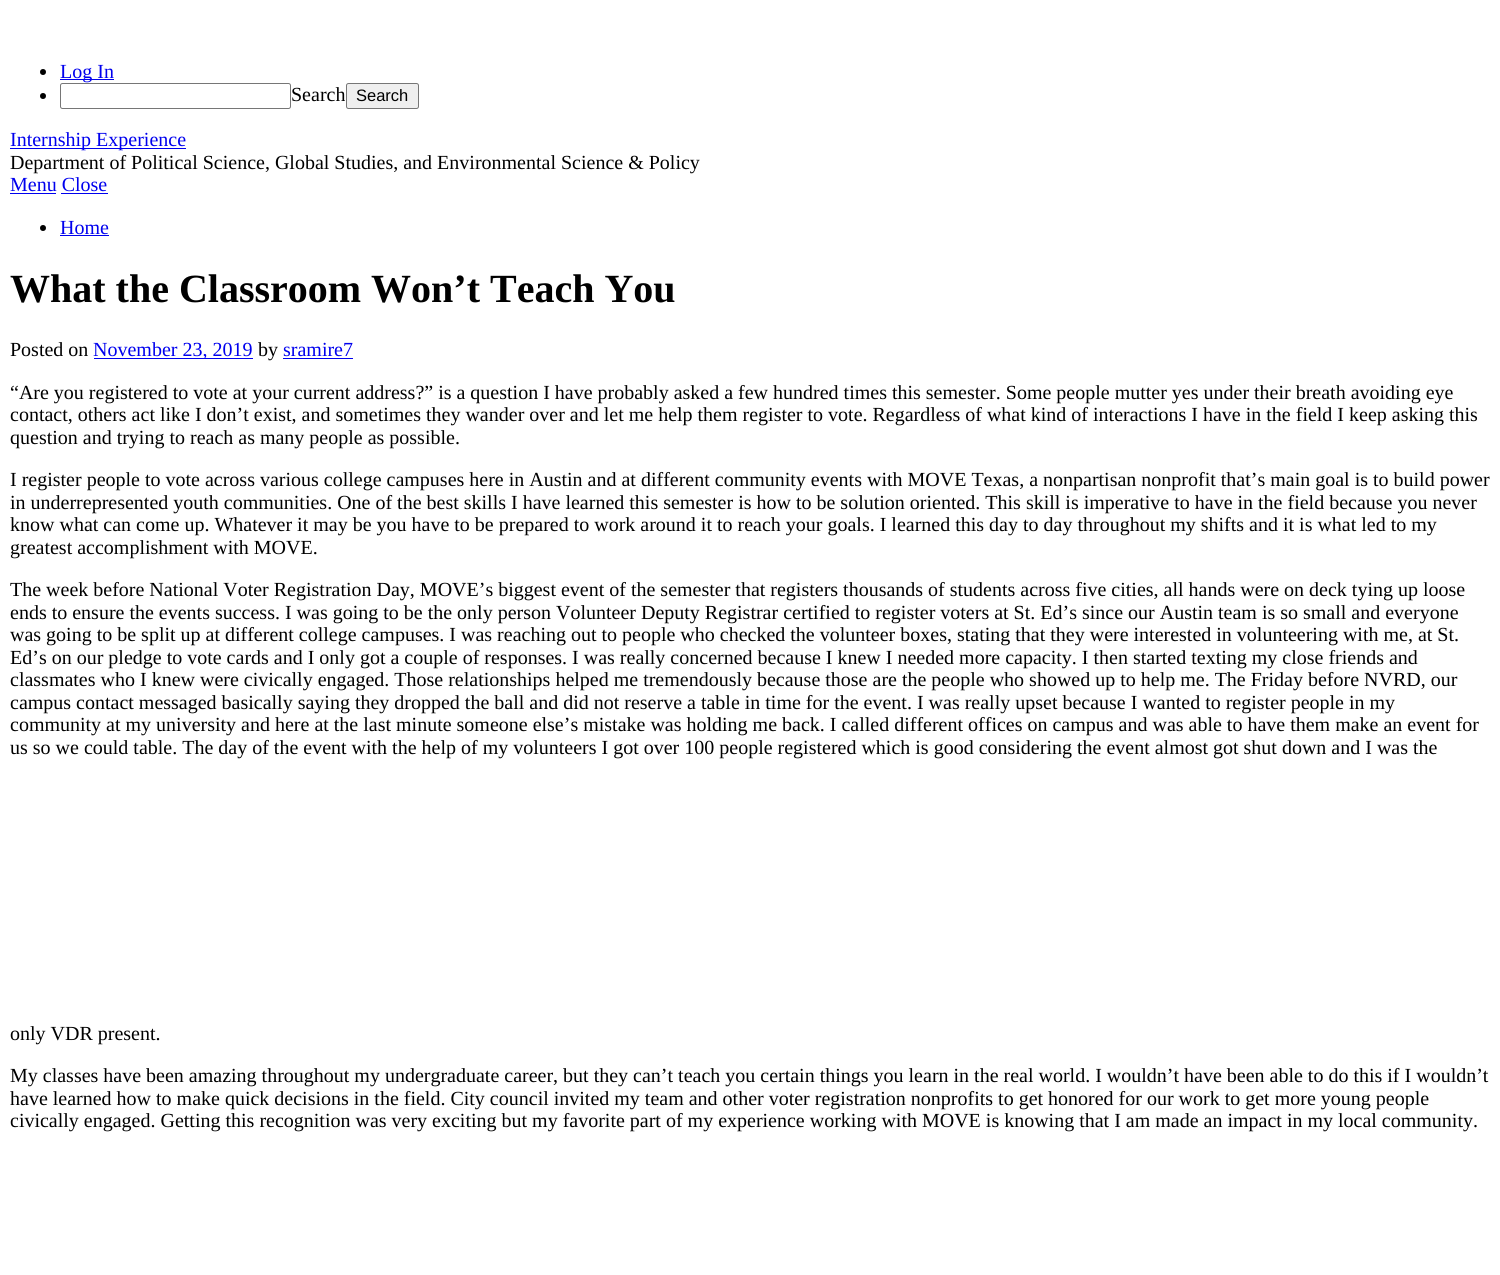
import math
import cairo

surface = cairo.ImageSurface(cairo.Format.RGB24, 1500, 1275)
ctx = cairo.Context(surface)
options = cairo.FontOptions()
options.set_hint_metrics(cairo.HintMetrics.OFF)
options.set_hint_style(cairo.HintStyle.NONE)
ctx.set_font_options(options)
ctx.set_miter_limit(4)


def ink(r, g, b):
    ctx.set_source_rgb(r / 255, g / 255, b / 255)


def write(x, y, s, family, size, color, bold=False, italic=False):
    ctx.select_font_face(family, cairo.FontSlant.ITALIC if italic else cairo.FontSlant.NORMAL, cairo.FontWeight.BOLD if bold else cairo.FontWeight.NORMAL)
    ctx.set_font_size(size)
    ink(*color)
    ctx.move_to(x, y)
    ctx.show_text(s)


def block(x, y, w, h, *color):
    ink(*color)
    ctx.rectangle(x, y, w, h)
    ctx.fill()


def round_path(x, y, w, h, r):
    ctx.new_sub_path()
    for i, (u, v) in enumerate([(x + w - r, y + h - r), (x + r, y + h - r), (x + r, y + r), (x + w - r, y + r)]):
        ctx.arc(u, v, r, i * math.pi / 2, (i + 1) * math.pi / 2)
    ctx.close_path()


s1 = dict(family="Liberation Serif", size=20, color=(0, 0, 238))
s2 = dict(family="Liberation Serif", size=20, color=(0, 0, 0))
s3 = dict(family="Liberation Sans", size=16.5, color=(0, 0, 0))
s4 = dict(family="Liberation Serif", size=40, color=(0, 0, 0), bold=True)

ink(255, 255, 255)
ctx.paint()
ink(0, 0, 0)
ctx.arc(43, 72, 3, 0, 2 * math.pi)
ctx.fill()
block(60, 79, 54, 1, 0, 0, 238)
write(60, 78, "Log In", **s1)
ink(0, 0, 0)
ctx.new_path()
ctx.arc(43, 96, 3, 0, 2 * math.pi)
ctx.fill()
round_path(60.5, 83.5, 230, 25, 2)
ink(118, 118, 118)
ctx.set_line_width(1)
ctx.stroke()
write(291, 101, "Search", **s2)
ink(239, 239, 239)
round_path(346.5, 83.5, 72, 25, 2)
ctx.fill_preserve()
ink(118, 118, 118)
ctx.stroke()
write(356, 101, "Search", **s3)
block(10, 148, 176, 1, 0, 0, 238)
write(10, 146, "Internship Experience", **s1)
write(10, 169, "Department of Political Science, Global Studies, and Environmental Science & Policy", **s2)
write(10, 191, "Menu Close", **s1)
block(10, 193, 46, 1, 0, 0, 238)
block(61, 193, 47, 1, 0, 0, 238)
ink(0, 0, 0)
ctx.new_path()
ctx.arc(43, 228, 3, 0, 2 * math.pi)
ctx.fill()
write(60, 234, "Home", **s1)
block(60, 235, 49, 1, 0, 0, 238)
write(10, 302, "What the Classroom Won’t Teach You", **s4)
write(10, 356, "Posted on", **s2)
block(94, 358, 159, 1, 0, 0, 238)
write(93, 356, "November 23, 2019", **s1)
write(258, 356, "by", **s2)
write(283, 356, "sramire7", **s1)
block(283, 358, 70, 1, 0, 0, 238)
write(10, 399, "“Are you registered to vote at your current address?” is a question I have probably asked a few hundred times this semester. Some people mutter yes under their breath avoiding eye", **s2)
write(10, 421, "contact, others act like I don’t exist, and sometimes they wander over and let me help them register to vote. Regardless of what kind of interactions I have in the field I keep asking this", **s2)
write(10, 444, "question and trying to reach as many people as possible.", **s2)
write(10, 486, "I register people to vote across various college campuses here in Austin and at different community events with MOVE Texas, a nonpartisan nonprofit that’s main goal is to build power", **s2)
write(10, 509, "in underrepresented youth communities. One of the best skills I have learned this semester is how to be solution oriented. This skill is imperative to have in the field because you never", **s2)
write(10, 531, "know what can come up. Whatever it may be you have to be prepared to work around it to reach your goals. I learned this day to day throughout my shifts and it is what led to my", **s2)
write(10, 554, "greatest accomplishment with MOVE.", **s2)
write(10, 596, "The week before National Voter Registration Day, MOVE’s biggest event of the semester that registers thousands of students across five cities, all hands were on deck tying up loose", **s2)
write(10, 619, "ends to ensure the events success. I was going to be the only person Volunteer Deputy Registrar certified to register voters at St. Ed’s since our Austin team is so small and everyone", **s2)
write(10, 641, "was going to be split up at different college campuses. I was reaching out to people who checked the volunteer boxes, stating that they were interested in volunteering with me, at St.", **s2)
write(10, 664, "Ed’s on our pledge to vote cards and I only got a couple of responses. I was really concerned because I knew I needed more capacity. I then started texting my close friends and", **s2)
write(10, 686, "classmates who I knew were civically engaged. Those relationships helped me tremendously because those are the people who showed up to help me. The Friday before NVRD, our", **s2)
write(10, 709, "campus contact messaged basically saying they dropped the ball and did not reserve a table in time for the event. I was really upset because I wanted to register people in my", **s2)
write(10, 731, "community at my university and here at the last minute someone else’s mistake was holding me back. I called different offices on campus and was able to have them make an event for", **s2)
write(10, 754, "us so we could table. The day of the event with the help of my volunteers I got over 100 people registered which is good considering the event almost got shut down and I was the", **s2)
write(10, 1040, "only VDR present.", **s2)
write(10, 1082, "My classes have been amazing throughout my undergraduate career, but they can’t teach you certain things you learn in the real world. I wouldn’t have been able to do this if I wouldn’t", **s2)
write(10, 1105, "have learned how to make quick decisions in the field. City council invited my team and other voter registration nonprofits to get honored for our work to get more young people", **s2)
write(10, 1127, "civically engaged. Getting this recognition was very exciting but my favorite part of my experience working with MOVE is knowing that I am made an impact in my local community.", **s2)
surface.write_to_png("screenshot.png")
